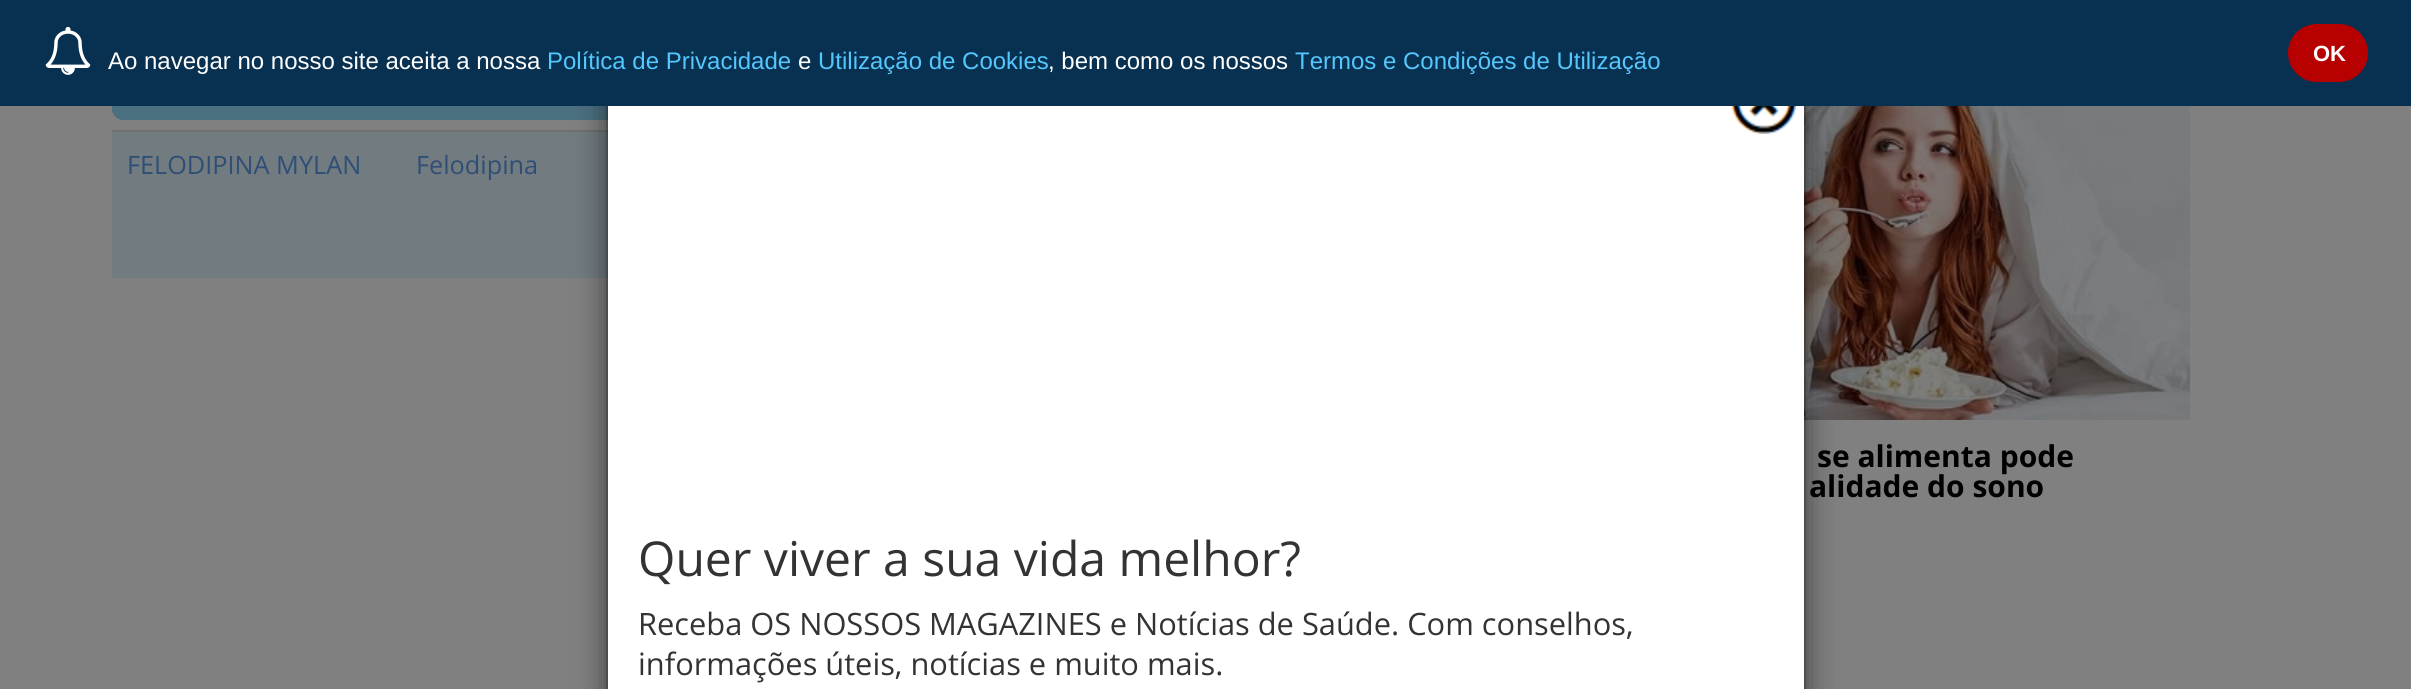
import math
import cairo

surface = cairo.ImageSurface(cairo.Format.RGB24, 2411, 689)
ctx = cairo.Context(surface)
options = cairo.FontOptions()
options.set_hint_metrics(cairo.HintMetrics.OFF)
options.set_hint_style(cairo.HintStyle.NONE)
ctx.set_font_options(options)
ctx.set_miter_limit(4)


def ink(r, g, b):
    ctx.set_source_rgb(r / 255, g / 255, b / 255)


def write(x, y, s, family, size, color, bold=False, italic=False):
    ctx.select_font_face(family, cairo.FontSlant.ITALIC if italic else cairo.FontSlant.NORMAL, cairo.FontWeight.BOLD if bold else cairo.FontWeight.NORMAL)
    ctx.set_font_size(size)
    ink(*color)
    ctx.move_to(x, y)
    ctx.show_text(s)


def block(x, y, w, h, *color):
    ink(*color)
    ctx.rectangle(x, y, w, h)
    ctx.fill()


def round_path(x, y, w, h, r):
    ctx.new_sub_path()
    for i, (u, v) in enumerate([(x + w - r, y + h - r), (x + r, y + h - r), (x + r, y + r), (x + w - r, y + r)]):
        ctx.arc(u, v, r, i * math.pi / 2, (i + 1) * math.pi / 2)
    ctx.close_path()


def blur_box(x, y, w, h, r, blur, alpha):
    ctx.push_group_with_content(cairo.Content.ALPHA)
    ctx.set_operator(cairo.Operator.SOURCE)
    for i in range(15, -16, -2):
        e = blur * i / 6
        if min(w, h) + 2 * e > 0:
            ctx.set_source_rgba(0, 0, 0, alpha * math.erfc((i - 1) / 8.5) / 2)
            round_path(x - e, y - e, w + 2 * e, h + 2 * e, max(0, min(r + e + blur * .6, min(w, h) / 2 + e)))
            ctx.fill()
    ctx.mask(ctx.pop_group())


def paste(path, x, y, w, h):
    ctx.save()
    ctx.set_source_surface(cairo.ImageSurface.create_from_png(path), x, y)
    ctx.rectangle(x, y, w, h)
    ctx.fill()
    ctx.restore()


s1 = dict(family="Liberation Sans", size=24, color=(255, 255, 255))
s2 = dict(family="Liberation Sans", size=24, color=(84, 199, 253))
s3 = dict(family="Liberation Sans", size=22, color=(255, 255, 255), bold=True)
s4 = dict(family="Open Sans", size=25.25, color=(47, 78, 118))
s5 = dict(family="Open Sans", size=30, color=(0, 0, 0), bold=True)
s6 = dict(family="Open Sans", size=48, color=(51, 51, 51))
s7 = dict(family="Open Sans", size=30.8, color=(51, 51, 51))

ink(128, 128, 128)
ctx.paint()
ink(75, 112, 128)
ctx.new_path()
ctx.move_to(124, 44)
ctx.line_to(400, 44)
ctx.line_to(400, 120)
ctx.line_to(124, 120)
ctx.curve_to(117.5, 120, 112, 114.5, 112, 108)
ctx.line_to(112, 56)
ctx.curve_to(112, 49.5, 117.5, 44, 124, 44)
ctx.close_path()
ctx.fill()
ctx.set_fill_rule(cairo.FillRule.EVEN_ODD)
ctx.new_path()
ctx.move_to(124, 44)
ctx.line_to(400, 44)
ctx.line_to(400, 120)
ctx.line_to(124, 120)
ctx.curve_to(117, 120, 112, 115, 112, 108)
ctx.line_to(112, 56)
ctx.curve_to(112, 49, 117, 44, 124, 44)
ctx.close_path()
ctx.move_to(124, 44)
ctx.line_to(398, 44)
ctx.line_to(398, 118)
ctx.line_to(124, 118)
ctx.curve_to(118, 118, 114, 114, 114, 108)
ctx.line_to(114, 56)
ctx.curve_to(114, 49, 118, 44, 124, 44)
ctx.close_path()
ctx.fill()
block(400, 106, 208, 14, 75, 112, 128)
block(112, 132, 496, 146, 113, 123, 128)
block(112, 130, 496, 2, 111, 111, 111)
paste("pic2.png", 1804, 106, 386, 314)
ink(0, 0, 0)
blur_box(606, 70, 1200, 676, 12, 15, 0.5)
block(608, 106, 1196, 583, 255, 255, 255)
ctx.rectangle(607, 61, 1198, 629)
ctx.set_source_rgba(0, 0, 0, 0.2)
ctx.stroke()
block(0, 0, 2411, 106, 8, 48, 80)
paste("pic1.png", 45, 26, 46, 49)
write(108, 69, "Ao navegar no nosso site aceita a nossa", **s1)
write(547, 69, "Política de Privacidade", **s2)
write(798, 69, "e", **s1)
write(818, 69, "Utilização de Cookies", **s2)
write(1048, 69, ", bem como os nossos", **s1)
write(1295, 69, "Termos e Condições de Utilização", **s2)
ink(183, 0, 0)
round_path(2288, 24, 80, 58, 29)
ctx.fill()
write(2313, 61, "OK", **s3)
write(127, 174, "FELODIPINA MYLAN", **s4)
write(416, 174, "Felodipina", **s4)
write(1817, 467, "se alimenta pode", **s5)
write(1809, 497, "alidade do sono", **s5)
paste("pic3.png", 1732, 106, 64, 28)
write(638, 576, "Quer viver a sua vida melhor?", **s6)
write(638, 635, "Receba OS NOSSOS MAGAZINES e Notícias de Saúde. Com conselhos,", **s7)
write(638, 675, "informações úteis, notícias e muito mais.", **s7)
surface.write_to_png("screenshot.png")
